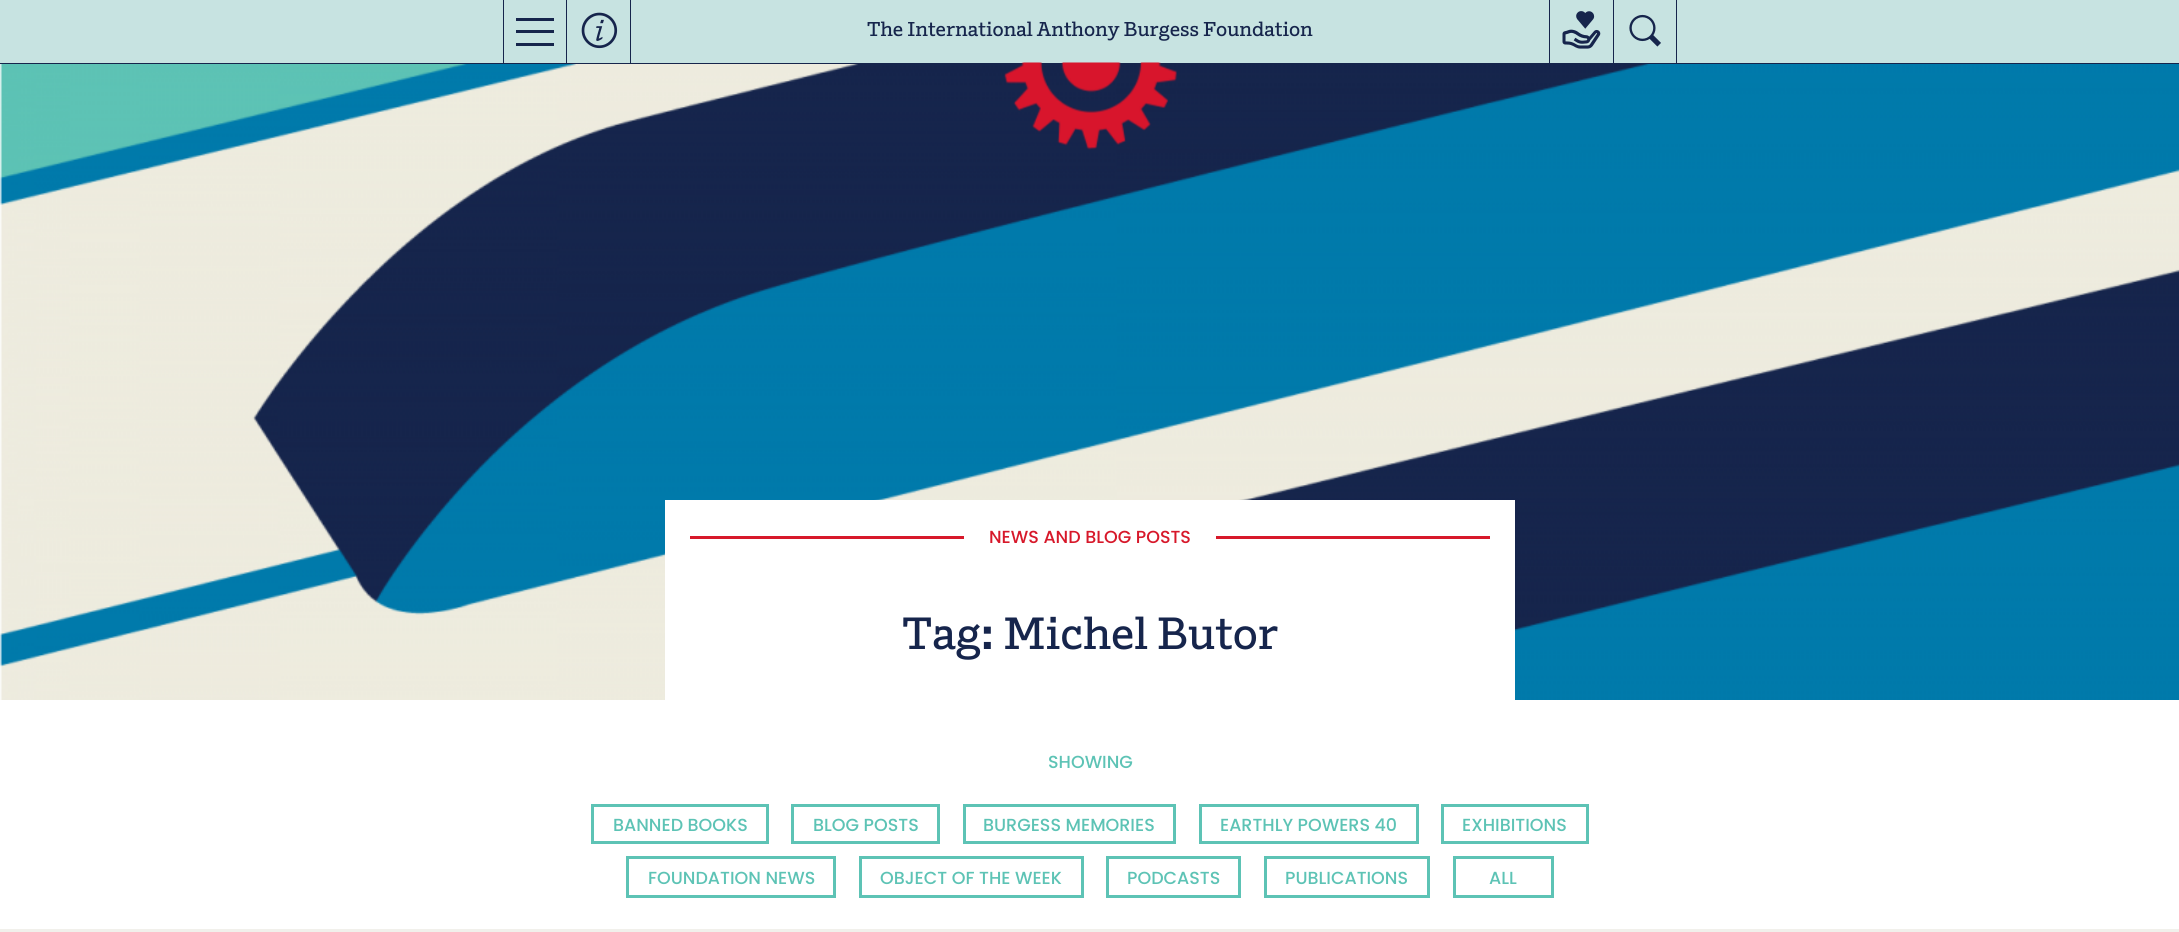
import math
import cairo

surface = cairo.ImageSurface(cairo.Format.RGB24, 2179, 932)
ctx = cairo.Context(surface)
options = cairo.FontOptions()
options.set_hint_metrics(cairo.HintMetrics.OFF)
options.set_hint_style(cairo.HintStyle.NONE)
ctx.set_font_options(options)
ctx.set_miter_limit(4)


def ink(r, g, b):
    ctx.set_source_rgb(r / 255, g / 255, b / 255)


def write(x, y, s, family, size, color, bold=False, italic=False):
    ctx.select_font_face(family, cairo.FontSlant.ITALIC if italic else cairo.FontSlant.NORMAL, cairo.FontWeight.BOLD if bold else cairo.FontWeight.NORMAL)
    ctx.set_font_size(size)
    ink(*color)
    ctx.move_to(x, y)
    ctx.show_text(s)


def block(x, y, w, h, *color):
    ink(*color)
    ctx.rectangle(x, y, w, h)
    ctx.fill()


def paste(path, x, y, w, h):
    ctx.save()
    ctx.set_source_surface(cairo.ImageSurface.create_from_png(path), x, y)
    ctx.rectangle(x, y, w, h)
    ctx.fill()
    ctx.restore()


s1 = dict(family="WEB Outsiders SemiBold", size=20, color=(22, 37, 76))
s2 = dict(family="Poppins Medium", size=17.5, color=(215, 24, 42))
s3 = dict(family="WEB Outsiders SemiBold", size=45, color=(22, 37, 76))
s4 = dict(family="Poppins Medium", size=17.5, color=(93, 195, 181))

ink(255, 255, 255)
ctx.paint()
block(0, 0, 2179, 63, 199, 227, 225)
block(0, 63, 2179, 1, 22, 37, 76)
block(566, 0, 1, 63, 22, 37, 76)
block(503, 0, 1, 63, 22, 37, 76)
block(516, 18, 38, 3, 22, 37, 76)
block(516, 30, 38, 3, 22, 37, 76)
block(516, 43, 38, 3, 22, 37, 76)
block(630, 0, 1, 63, 22, 37, 76)
paste("pic1.png", 581, 12, 37, 37)
block(1549, 0, 1, 63, 22, 37, 76)
write(867, 36, "The International Anthony Burgess Foundation", **s1)
block(1613, 0, 1, 63, 22, 37, 76)
paste("pic2.png", 1562, 11, 39, 38)
block(1676, 0, 1, 63, 22, 37, 76)
paste("pic3.png", 1629, 14, 32, 33)
paste("pic5.png", 0, 64, 2179, 636)
paste("pic4.png", 1004, 62, 173, 88)
block(665, 500, 850, 200, 255, 255, 255)
block(690, 536, 274, 3, 215, 24, 42)
write(989, 543, "NEWS AND BLOG POSTS", **s2)
block(1216, 536, 274, 3, 215, 24, 42)
write(902, 649, "Tag: Michel Butor", **s3)
write(1048, 768, "SHOWING", **s4)
ctx.rectangle(592.5, 805.5, 175, 37)
ctx.set_line_width(3)
ctx.stroke()
write(613, 831, "BANNED BOOKS", **s4)
ctx.rectangle(792.5, 805.5, 146, 37)
ctx.stroke()
write(813, 831, "BLOG POSTS", **s4)
ctx.rectangle(964.5, 805.5, 210, 37)
ctx.stroke()
write(983, 831, "BURGESS MEMORIES", **s4)
ctx.rectangle(1200.5, 805.5, 217, 37)
ctx.stroke()
write(1220, 831, "EARTHLY POWERS 40", **s4)
ctx.rectangle(1442.5, 805.5, 145, 37)
ctx.stroke()
write(1462, 831, "EXHIBITIONS", **s4)
ctx.rectangle(627.5, 857.5, 207, 39)
ctx.stroke()
write(648, 884, "FOUNDATION NEWS", **s4)
ctx.rectangle(860.5, 857.5, 222, 39)
ctx.stroke()
write(880, 884, "OBJECT OF THE WEEK", **s4)
ctx.rectangle(1107.5, 857.5, 132, 39)
ctx.stroke()
write(1127, 884, "PODCASTS", **s4)
ctx.rectangle(1265.5, 857.5, 163, 39)
ctx.stroke()
write(1285, 884, "PUBLICATIONS", **s4)
ctx.rectangle(1454.5, 857.5, 98, 39)
ctx.stroke()
write(1489, 884, "ALL", **s4)
block(0, 929, 2179, 3, 241, 240, 235)
surface.write_to_png("screenshot.png")
